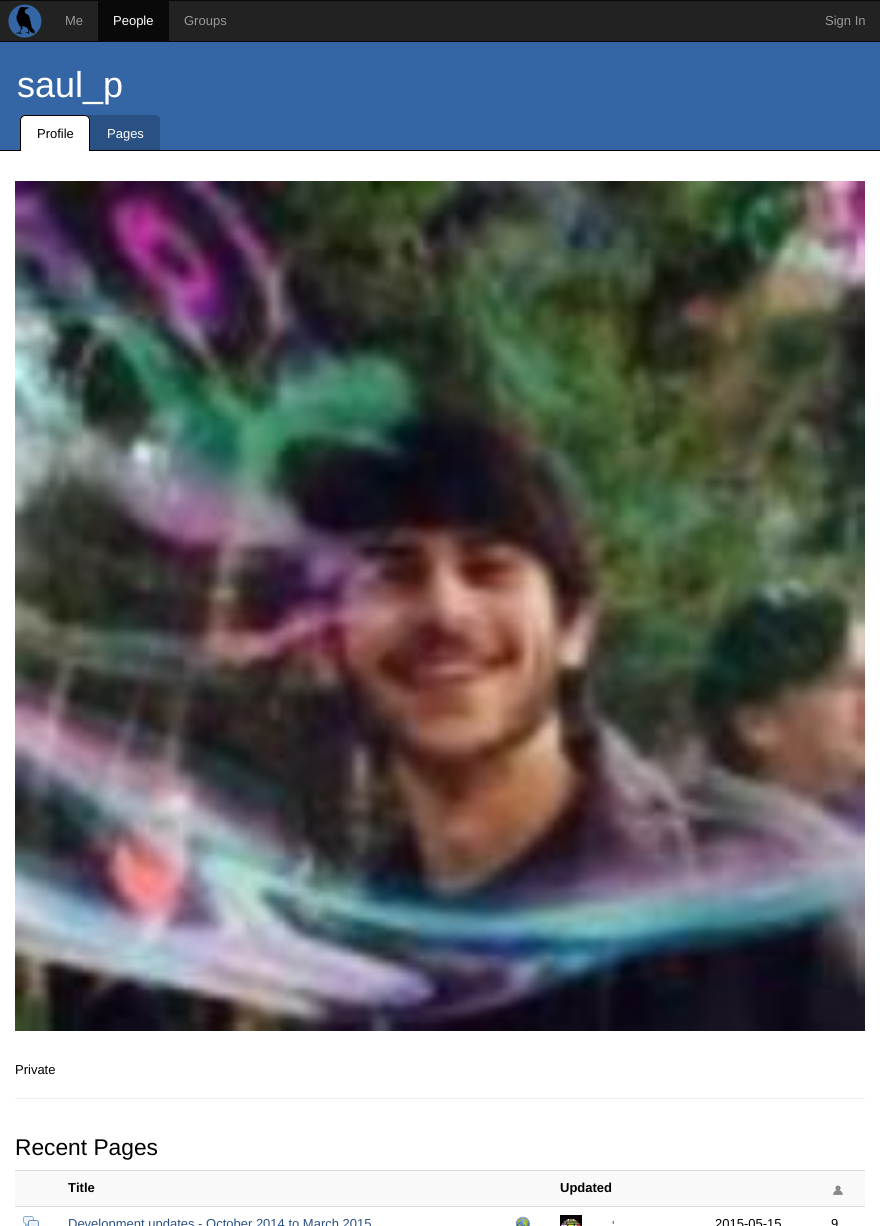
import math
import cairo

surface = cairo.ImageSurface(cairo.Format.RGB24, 880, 1226)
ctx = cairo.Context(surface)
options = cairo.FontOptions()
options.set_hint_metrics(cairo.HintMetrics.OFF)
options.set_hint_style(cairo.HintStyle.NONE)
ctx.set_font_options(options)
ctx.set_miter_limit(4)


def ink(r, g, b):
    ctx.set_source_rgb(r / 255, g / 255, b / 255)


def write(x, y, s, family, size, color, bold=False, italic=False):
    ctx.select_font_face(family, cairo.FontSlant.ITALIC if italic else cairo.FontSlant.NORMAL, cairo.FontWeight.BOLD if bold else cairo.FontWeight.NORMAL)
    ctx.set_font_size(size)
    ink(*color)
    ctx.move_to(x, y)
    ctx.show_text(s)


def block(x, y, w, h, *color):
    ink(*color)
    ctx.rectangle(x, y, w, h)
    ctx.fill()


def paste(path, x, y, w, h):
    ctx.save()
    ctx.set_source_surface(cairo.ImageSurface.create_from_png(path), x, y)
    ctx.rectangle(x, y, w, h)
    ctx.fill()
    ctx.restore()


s1 = dict(family="Liberation Sans", size=13, color=(153, 153, 153))
s2 = dict(family="Liberation Sans", size=13, color=(255, 255, 255))
s3 = dict(family="Liberation Sans", size=36, color=(255, 255, 255))
s4 = dict(family="Liberation Sans", size=13, color=(0, 0, 0))
s5 = dict(family="Liberation Sans", size=22.75, color=(0, 0, 0))
s6 = dict(family="Liberation Sans", size=13, color=(0, 0, 0), bold=True)
s7 = dict(family="Liberation Sans", size=13, color=(42, 81, 131))

ink(255, 255, 255)
ctx.paint()
block(0, 1, 880, 40, 34, 34, 34)
block(0, 0, 880, 1, 9, 9, 9)
block(0, 41, 880, 1, 9, 9, 9)
paste("pic1.png", 8, 4, 34, 34)
write(65, 25, "Me", **s1)
block(98, 1, 71, 40, 9, 9, 9)
write(113, 25, "People", **s2)
write(184, 25, "Groups", **s1)
write(825, 25, "Sign In", **s1)
block(0, 42, 880, 108, 52, 101, 164)
block(0, 150, 880, 1, 0, 0, 0)
write(17, 97, "saul_p", **s3)
ctx.set_source_rgba(0, 0, 0, 0.2)
ctx.new_path()
ctx.move_to(25, 115)
ctx.line_to(90, 115)
ctx.line_to(90, 151)
ctx.line_to(20, 151)
ctx.line_to(20, 120)
ctx.curve_to(20, 117, 22, 115, 25, 115)
ctx.close_path()
ctx.fill()
ink(255, 255, 255)
ctx.new_path()
ctx.move_to(25, 115)
ctx.line_to(85, 115)
ctx.curve_to(88, 115, 90, 117, 90, 120)
ctx.line_to(90, 151)
ctx.line_to(20, 151)
ctx.line_to(20, 120)
ctx.curve_to(20, 117, 22, 115, 25, 115)
ctx.close_path()
ctx.fill()
ink(0, 0, 0)
ctx.set_fill_rule(cairo.FillRule.EVEN_ODD)
ctx.new_path()
ctx.move_to(25, 115)
ctx.line_to(85, 115)
ctx.curve_to(88, 115, 90, 117, 90, 120)
ctx.line_to(90, 151)
ctx.line_to(20, 151)
ctx.line_to(20, 120)
ctx.curve_to(20, 117, 22, 115, 25, 115)
ctx.close_path()
ctx.move_to(25, 116)
ctx.line_to(85, 116)
ctx.curve_to(87, 116, 89, 118, 89, 120)
ctx.line_to(89, 151)
ctx.line_to(21, 151)
ctx.line_to(21, 120)
ctx.curve_to(21, 118, 23, 116, 25, 116)
ctx.close_path()
ctx.fill()
write(37, 138, "Profile", **s4)
ctx.set_source_rgba(0, 0, 0, 0.2)
ctx.new_path()
ctx.move_to(90, 115)
ctx.line_to(155, 115)
ctx.curve_to(158, 115, 160, 117, 160, 120)
ctx.line_to(160, 151)
ctx.line_to(90, 151)
ctx.close_path()
ctx.fill()
write(107, 138, "Pages", **s2)
paste("pic2.png", 15, 181, 850, 850)
write(15, 1074, "Private", **s4)
block(15, 1098, 850, 1, 238, 238, 238)
write(15, 1155, "Recent Pages", **s5)
block(15, 1171, 850, 35, 249, 249, 249)
block(15, 1170, 850, 1, 221, 221, 221)
paste("pic3.png", 833, 1185, 10, 10)
write(68, 1192, "Title", **s6)
write(560, 1192, "Updated", **s6)
paste("pic4.png", 23, 1216, 16, 10)
write(68, 1228, "Development updates - October 2014 to March 2015", **s7)
paste("pic5.png", 515, 1216, 15, 10)
paste("pic6.png", 560, 1215, 22, 11)
write(612, 1230, "'", **s7)
write(715, 1228, "2015-05-15", **s4)
block(15, 1206, 850, 1, 221, 221, 221)
write(831, 1228, "9", **s4)
surface.write_to_png("screenshot.png")
